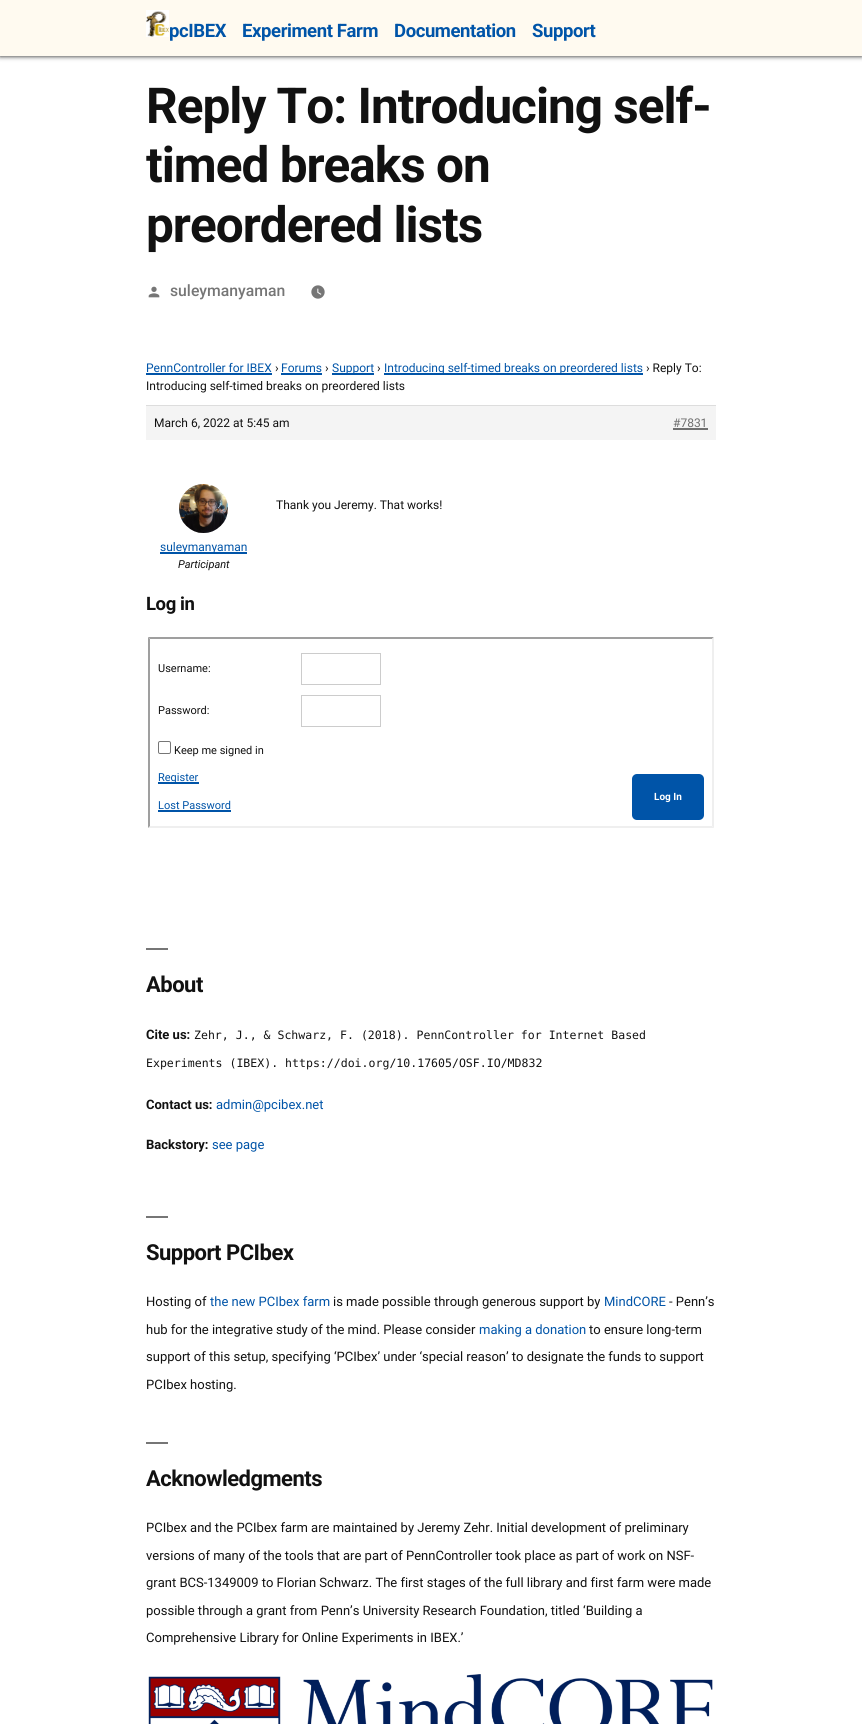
import math
import cairo

surface = cairo.ImageSurface(cairo.Format.RGB24, 862, 1724)
ctx = cairo.Context(surface)
options = cairo.FontOptions()
options.set_hint_metrics(cairo.HintMetrics.OFF)
options.set_hint_style(cairo.HintStyle.NONE)
ctx.set_font_options(options)
ctx.set_miter_limit(4)


def ink(r, g, b):
    ctx.set_source_rgb(r / 255, g / 255, b / 255)


def write(x, y, s, family, size, color, bold=False, italic=False):
    ctx.select_font_face(family, cairo.FontSlant.ITALIC if italic else cairo.FontSlant.NORMAL, cairo.FontWeight.BOLD if bold else cairo.FontWeight.NORMAL)
    ctx.set_font_size(size)
    ink(*color)
    ctx.move_to(x, y)
    ctx.show_text(s)


def write_spaced(x, y, s, letter, word):
    ctx.move_to(x, y)
    for ch in s:
        ctx.show_text(ch)
        ctx.rel_move_to(letter + word * (ch == ' '), 0)


def block(x, y, w, h, *color):
    ink(*color)
    ctx.rectangle(x, y, w, h)
    ctx.fill()


def round_path(x, y, w, h, r):
    ctx.new_sub_path()
    for i, (u, v) in enumerate([(x + w - r, y + h - r), (x + r, y + h - r), (x + r, y + r), (x + w - r, y + r)]):
        ctx.arc(u, v, r, i * math.pi / 2, (i + 1) * math.pi / 2)
    ctx.close_path()


def blur_box(x, y, w, h, r, blur, alpha):
    ctx.push_group_with_content(cairo.Content.ALPHA)
    ctx.set_operator(cairo.Operator.SOURCE)
    for i in range(15, -16, -2):
        e = blur * i / 6
        if min(w, h) + 2 * e > 0:
            ctx.set_source_rgba(0, 0, 0, alpha * math.erfc((i - 1) / 8.5) / 2)
            round_path(x - e, y - e, w + 2 * e, h + 2 * e, max(0, min(r + e + blur * .6, min(w, h) / 2 + e)))
            ctx.fill()
    ctx.mask(ctx.pop_group())


def paste(path, x, y, w, h):
    ctx.save()
    ctx.set_source_surface(cairo.ImageSurface.create_from_png(path), x, y)
    ctx.rectangle(x, y, w, h)
    ctx.fill()
    ctx.restore()


s1 = dict(family="Roboto Medium", size=15.75, color=(118, 118, 118))
s2 = dict(family="Roboto", size=12, color=(0, 84, 168))
s3 = dict(family="Roboto", size=12, color=(17, 17, 17))
s4 = dict(family="Roboto", size=12, color=(112, 112, 112))
s5 = dict(family="Roboto", size=11, color=(17, 17, 17), italic=True)
s6 = dict(family="Roboto", size=11, color=(17, 17, 17))
s7 = dict(family="Roboto", size=11, color=(0, 84, 168))
s8 = dict(family="Roboto", size=10, color=(255, 255, 255), bold=True)
s9 = dict(family="Roboto", size=13, color=(17, 17, 17), bold=True)
s10 = dict(family="DejaVu Sans Mono", size=11.55, color=(17, 17, 17))
s11 = dict(family="Roboto", size=13, color=(0, 84, 168))
s12 = dict(family="Roboto", size=13, color=(17, 17, 17))

ink(255, 255, 255)
ctx.paint()
ink(17, 17, 17)
blur_box(0, 0, 862, 56, 0, 2.5, 1)
block(0, 0, 862, 56, 255, 250, 240)
paste("pic1.png", 146, 10, 23, 27)
ctx.select_font_face("Roboto", cairo.FontSlant.NORMAL, cairo.FontWeight.BOLD)
ctx.set_font_size(18.5)
ink(0, 84, 168)
write_spaced(169, 37, "pcIBEX", -0.4, 0)
write_spaced(242, 37, "Experiment Farm", -0.4, 0)
write_spaced(394, 37, "Documentation", -0.4, 0)
write_spaced(532, 37, "Support", -0.4, 0)
ctx.set_font_size(49.5)
ink(17, 17, 17)
write_spaced(146, 123, "Reply To: Introducing self-", -1, 0)
write_spaced(146, 182, "timed breaks on", -1, 0)
write_spaced(146, 242, "preordered lists", -1, 0)
paste("pic2.png", 148, 286, 12, 12)
write(170, 296, "suleymanyaman", **s1)
paste("pic3.png", 311, 285, 14, 14)
write(146, 372, "PennController for IBEX", **s2)
block(146, 373, 126, 2, 0, 84, 168)
write(275, 372, "›", **s3)
write(281, 372, "Forums", **s2)
block(281, 373, 41, 2, 0, 84, 168)
write(325, 372, "›", **s3)
block(332, 373, 42, 2, 0, 84, 168)
write(332, 372, "Support", **s2)
write(377, 372, "›", **s3)
block(384, 373, 259, 2, 0, 84, 168)
write(384, 372, "Introducing self-timed breaks on preordered lists", **s2)
write(646, 372, "› Reply To:", **s3)
write(146, 390, "Introducing self-timed breaks on preordered lists", **s3)
block(146, 406, 570, 34, 244, 244, 244)
block(146, 405, 570, 1, 221, 221, 221)
write(154, 427, "March 6, 2022 at 5:45 am", **s3)
write(673, 427, "#7831", **s4)
block(673, 428, 35, 2, 112, 112, 112)
write(276, 509, "Thank you Jeremy. That works!", **s3)
paste("pic4.png", 179, 484, 49, 49)
block(160, 552, 87, 2, 0, 84, 168)
write(160, 551, "suleymanyaman", **s2)
write(178, 568, "Participant", **s5)
ctx.select_font_face("Roboto", cairo.FontSlant.NORMAL, cairo.FontWeight.BOLD)
ctx.set_font_size(18.5)
write_spaced(146, 610, "Log in", -0.4, 0)
ink(159, 159, 159)
ctx.new_path()
ctx.move_to(148, 637)
ctx.line_to(714, 637)
ctx.line_to(712, 639)
ctx.line_to(150, 639)
ctx.close_path()
ctx.fill()
ink(239, 239, 239)
ctx.new_path()
ctx.move_to(714, 637)
ctx.line_to(714, 828)
ctx.line_to(712, 826)
ctx.line_to(712, 639)
ctx.close_path()
ctx.fill()
ctx.new_path()
ctx.move_to(714, 828)
ctx.line_to(148, 828)
ctx.line_to(150, 826)
ctx.line_to(712, 826)
ctx.close_path()
ctx.fill()
ink(159, 159, 159)
ctx.new_path()
ctx.move_to(148, 828)
ctx.line_to(148, 637)
ctx.line_to(150, 639)
ctx.line_to(150, 826)
ctx.close_path()
ctx.fill()
write(158, 672, "Username:", **s6)
ctx.rectangle(301.5, 653.5, 79, 31)
ink(204, 204, 204)
ctx.set_line_width(1)
ctx.stroke()
write(158, 714, "Password:", **s6)
ctx.rectangle(301.5, 695.5, 79, 31)
ink(204, 204, 204)
ctx.stroke()
round_path(158.5, 741.5, 12, 12, 1.5)
ink(118, 118, 118)
ctx.stroke()
write(174, 754, "Keep me signed in", **s6)
block(158, 782, 41, 2, 0, 84, 168)
write(158, 781, "Register", **s7)
write(158, 809, "Lost Password", **s7)
block(158, 810, 73, 2, 0, 84, 168)
round_path(632, 774, 72, 46, 5)
ctx.fill()
write(654, 800, "Log In", **s8)
block(146, 948, 22, 2, 118, 118, 118)
ctx.set_font_size(22)
ink(17, 17, 17)
write_spaced(146, 992, "About", -0.5, 0)
write(146, 1039, "Cite us:", **s9)
write(194, 1039, "Zehr, J., & Schwarz, F. (2018). PennController for Internet Based", **s10)
write(146, 1067, "Experiments (IBEX). https://doi.org/10.17605/OSF.IO/MD832", **s10)
write(146, 1109, "Contact us:", **s9)
write(216, 1109, "admin@pcibex.net", **s11)
write(146, 1149, "Backstory:", **s9)
write(212, 1149, "see page", **s11)
block(146, 1216, 22, 2, 118, 118, 118)
ctx.select_font_face("Roboto", cairo.FontSlant.NORMAL, cairo.FontWeight.BOLD)
ctx.set_font_size(22)
ink(17, 17, 17)
write_spaced(146, 1260, "Support PCIbex", -0.5, 0)
write(146, 1306, "Hosting of", **s12)
write(210, 1306, "the new PCIbex farm", **s11)
write(333, 1306, "is made possible through generous support by", **s12)
write(604, 1306, "MindCORE", **s11)
write(669, 1306, "- Penn’s", **s12)
write(146, 1334, "hub for the integrative study of the mind. Please consider", **s12)
write(479, 1334, "making a donation", **s11)
write(589, 1334, "to ensure long-term", **s12)
write(146, 1361, "support of this setup, specifying ‘PCIbex’ under ‘special reason’ to designate the funds to support", **s12)
write(146, 1389, "PCIbex hosting.", **s12)
block(146, 1442, 22, 2, 118, 118, 118)
ctx.select_font_face("Roboto", cairo.FontSlant.NORMAL, cairo.FontWeight.BOLD)
ctx.set_font_size(22)
ink(17, 17, 17)
write_spaced(146, 1486, "Acknowledgments", -0.5, 0)
write(146, 1532, "PCIbex and the PCIbex farm are maintained by Jeremy Zehr. Initial development of preliminary", **s12)
write(146, 1560, "versions of many of the tools that are part of PennController took place as part of work on NSF-", **s12)
write(146, 1587, "grant BCS-1349009 to Florian Schwarz. The first stages of the full library and first farm were made", **s12)
write(146, 1615, "possible through a grant from Penn’s University Research Foundation, titled ‘Building a", **s12)
write(146, 1642, "Comprehensive Library for Online Experiments in IBEX.’", **s12)
paste("pic5.png", 148, 1674, 565, 50)
surface.write_to_png("screenshot.png")
